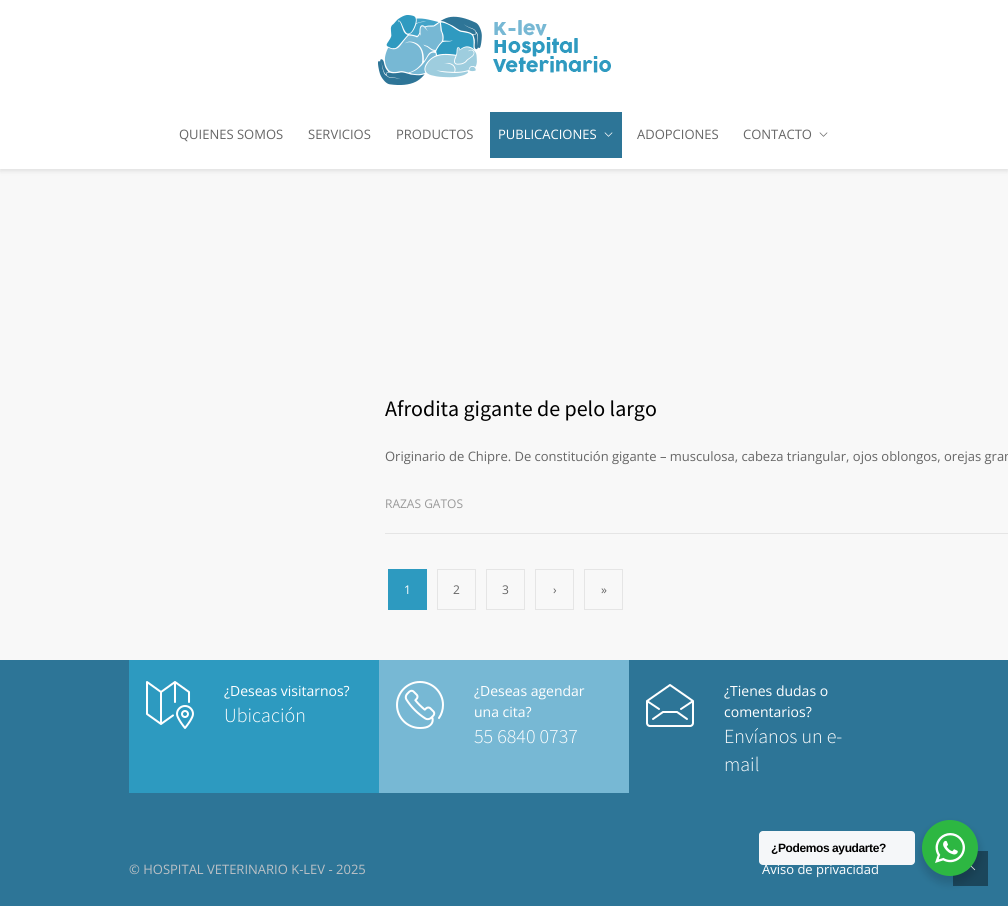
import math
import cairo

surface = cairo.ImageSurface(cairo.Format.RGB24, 1008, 906)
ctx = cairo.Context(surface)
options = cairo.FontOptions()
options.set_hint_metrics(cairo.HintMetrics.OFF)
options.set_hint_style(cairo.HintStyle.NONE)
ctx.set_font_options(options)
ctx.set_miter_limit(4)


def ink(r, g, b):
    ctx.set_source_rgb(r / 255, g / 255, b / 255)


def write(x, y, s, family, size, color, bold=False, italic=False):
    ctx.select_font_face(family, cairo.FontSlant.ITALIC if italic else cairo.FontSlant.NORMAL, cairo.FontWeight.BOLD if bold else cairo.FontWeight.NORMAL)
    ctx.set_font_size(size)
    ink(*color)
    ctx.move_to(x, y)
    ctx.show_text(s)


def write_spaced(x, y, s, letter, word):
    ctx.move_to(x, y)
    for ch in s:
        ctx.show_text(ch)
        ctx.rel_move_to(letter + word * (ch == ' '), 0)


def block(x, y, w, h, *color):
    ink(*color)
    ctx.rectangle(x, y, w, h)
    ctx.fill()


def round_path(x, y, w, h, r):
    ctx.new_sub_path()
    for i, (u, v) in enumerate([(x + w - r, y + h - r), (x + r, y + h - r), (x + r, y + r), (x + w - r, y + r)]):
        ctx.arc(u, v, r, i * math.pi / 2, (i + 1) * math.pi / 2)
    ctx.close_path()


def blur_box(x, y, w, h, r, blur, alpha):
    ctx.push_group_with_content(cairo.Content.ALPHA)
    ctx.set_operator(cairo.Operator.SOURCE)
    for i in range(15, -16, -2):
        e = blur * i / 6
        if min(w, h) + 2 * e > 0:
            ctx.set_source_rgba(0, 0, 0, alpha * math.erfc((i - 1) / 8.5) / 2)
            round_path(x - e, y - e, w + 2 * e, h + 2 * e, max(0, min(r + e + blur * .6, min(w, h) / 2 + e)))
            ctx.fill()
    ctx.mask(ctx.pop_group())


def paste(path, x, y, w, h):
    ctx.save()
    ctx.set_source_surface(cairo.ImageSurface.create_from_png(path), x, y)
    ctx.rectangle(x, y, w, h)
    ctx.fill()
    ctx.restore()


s1 = dict(family="Open Sans", size=13, color=(102, 102, 102))
s2 = dict(family="Open Sans", size=13, color=(255, 255, 255))
s3 = dict(family="Source Sans Pro", size=22, color=(0, 0, 0))
s4 = dict(family="Open Sans", size=12, color=(153, 153, 153))
s5 = dict(family="Open Sans", size=12, color=(255, 255, 255))
s6 = dict(family="Open Sans", size=12, color=(102, 102, 102))
s7 = dict(family="Open Sans", size=14, color=(255, 255, 255))
s8 = dict(family="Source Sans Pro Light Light", size=20, color=(255, 255, 255))
s9 = dict(family="Open Sans", size=13, color=(186, 192, 197))

ink(248, 248, 248)
ctx.paint()
ink(0, 0, 0)
blur_box(0, 2, 1008, 169, 0, 2.5, 0.1)
block(0, 0, 1008, 169, 255, 255, 255)
paste("pic1.png", 378, 15, 233, 70)
write(179, 139, "QUIENES SOMOS", **s1)
write(308, 139, "SERVICIOS", **s1)
write(396, 139, "PRODUCTOS", **s1)
block(490, 112, 132, 46, 45, 117, 151)
write(498, 139, "PUBLICACIONES", **s2)
paste("pic2.png", 604, 132, 9, 5)
write(637, 139, "ADOPCIONES", **s1)
write(743, 139, "CONTACTO", **s1)
paste("pic3.png", 819, 132, 9, 5)
block(385, 533, 623, 1, 229, 229, 229)
write(385, 416, "Afrodita gigante de pelo largo", **s3)
write(385, 461, "Originario de Chipre. De constitución gigante – musculosa, cabeza triangular, ojos oblongos, orejas gran", **s1)
write(385, 508, "RAZAS GATOS", **s4)
block(388, 569, 39, 41, 45, 154, 192)
write(404, 594, "1", **s5)
ctx.rectangle(437.5, 569.5, 38, 40)
ink(229, 229, 229)
ctx.set_line_width(1)
ctx.stroke()
write(453, 594, "2", **s6)
ctx.rectangle(486.5, 569.5, 38, 40)
ink(229, 229, 229)
ctx.stroke()
write(502, 594, "3", **s6)
ctx.rectangle(535.5, 569.5, 38, 40)
ink(229, 229, 229)
ctx.stroke()
write(553, 594, "›", **s6)
ctx.rectangle(584.5, 569.5, 38, 40)
ink(229, 229, 229)
ctx.stroke()
write(601, 594, "»", **s6)
block(0, 660, 1008, 246, 45, 117, 151)
block(129, 660, 250, 133, 45, 154, 192)
paste("pic4.png", 146, 681, 48, 48)
write(224, 696, "¿Deseas visitarnos?", **s7)
write(224, 722, "Ubicación", **s8)
block(379, 660, 250, 133, 119, 184, 212)
paste("pic5.png", 396, 681, 48, 48)
write(474, 696, "¿Deseas agendar", **s7)
write(474, 717, "una cita?", **s7)
write(474, 743, "55 6840 0737", **s8)
paste("pic6.png", 646, 684, 48, 43)
write(724, 696, "¿Tienes dudas o", **s7)
write(724, 717, "comentarios?", **s7)
write(724, 743, "Envíanos un e-", **s8)
write(724, 771, "mail", **s8)
write(129, 874, "© HOSPITAL VETERINARIO K-LEV - 2025", **s9)
write(762, 874, "Aviso de privacidad", **s2)
block(953, 851, 35, 35, 27, 70, 91)
paste("pic8.png", 966, 865, 10, 6)
ink(0, 0, 0)
blur_box(920, 824, 60, 60, 30, 4, 0.14)
ink(245, 247, 249)
round_path(759, 831, 156, 34, 4)
ctx.fill()
ctx.select_font_face("Liberation Sans", cairo.FontSlant.NORMAL, cairo.FontWeight.BOLD)
ctx.set_font_size(12)
ink(0, 0, 0)
write_spaced(771, 852, "¿Podemos ayudarte?", -0.4, 0)
ink(45, 183, 66)
ctx.new_path()
ctx.arc(950, 848, 28, 0, 2 * math.pi)
ctx.fill()
paste("pic7.png", 935, 833, 30, 30)
surface.write_to_png("screenshot.png")
